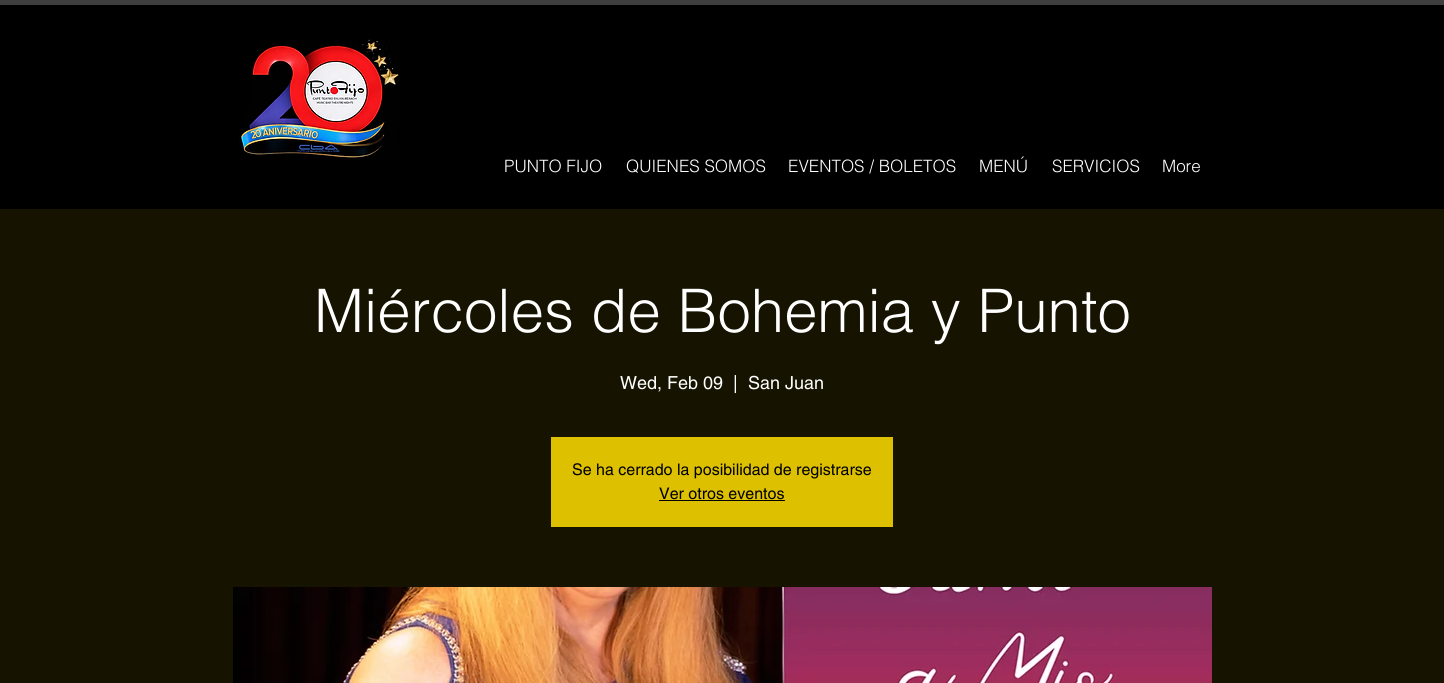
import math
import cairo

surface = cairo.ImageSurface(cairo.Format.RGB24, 1444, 683)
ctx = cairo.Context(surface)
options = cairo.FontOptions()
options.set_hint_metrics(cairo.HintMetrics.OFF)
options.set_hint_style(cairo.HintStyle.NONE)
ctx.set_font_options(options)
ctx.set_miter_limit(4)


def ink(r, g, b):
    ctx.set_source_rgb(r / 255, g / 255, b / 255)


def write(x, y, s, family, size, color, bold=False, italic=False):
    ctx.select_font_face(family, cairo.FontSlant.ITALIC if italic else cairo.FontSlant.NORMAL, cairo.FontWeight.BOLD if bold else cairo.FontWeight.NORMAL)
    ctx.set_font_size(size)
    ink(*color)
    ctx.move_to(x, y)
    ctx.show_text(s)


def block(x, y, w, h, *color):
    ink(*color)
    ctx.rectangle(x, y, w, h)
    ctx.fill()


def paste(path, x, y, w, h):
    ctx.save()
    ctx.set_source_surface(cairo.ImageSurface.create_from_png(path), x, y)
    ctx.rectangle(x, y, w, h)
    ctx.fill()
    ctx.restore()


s1 = dict(family="helvetica Light", size=17, color=(255, 255, 255))
s2 = dict(family="helvetica Light", size=60, color=(255, 255, 255))
s3 = dict(family="helvetica", size=18, color=(255, 255, 255))
s4 = dict(family="helvetica", size=16, color=(0, 0, 0))

ink(0, 0, 0)
ctx.paint()
block(0, 0, 1444, 5, 62, 62, 62)
paste("pic1.png", 239, 39, 160, 121)
write(504, 172, "PUNTO FIJO", **s1)
write(626, 172, "QUIENES SOMOS", **s1)
write(788, 172, "EVENTOS / BOLETOS", **s1)
write(979, 172, "MENÚ", **s1)
write(1052, 172, "SERVICIOS", **s1)
write(1162, 172, "More", **s1)
block(0, 209, 1444, 474, 22, 19, 0)
write(314, 332, "Miércoles de Bohemia y Punto", **s2)
write(620, 389, "Wed, Feb 09", **s3)
write(733, 389, "|", **s3)
write(748, 389, "San Juan", **s3)
block(551, 437, 342, 90, 221, 192, 0)
write(572, 475, "Se ha cerrado la posibilidad de registrarse", **s4)
write(659, 499, "Ver otros eventos", **s4)
block(659, 500, 126, 1, 0, 0, 0)
paste("pic2.png", 233, 587, 979, 96)
surface.write_to_png("screenshot.png")
